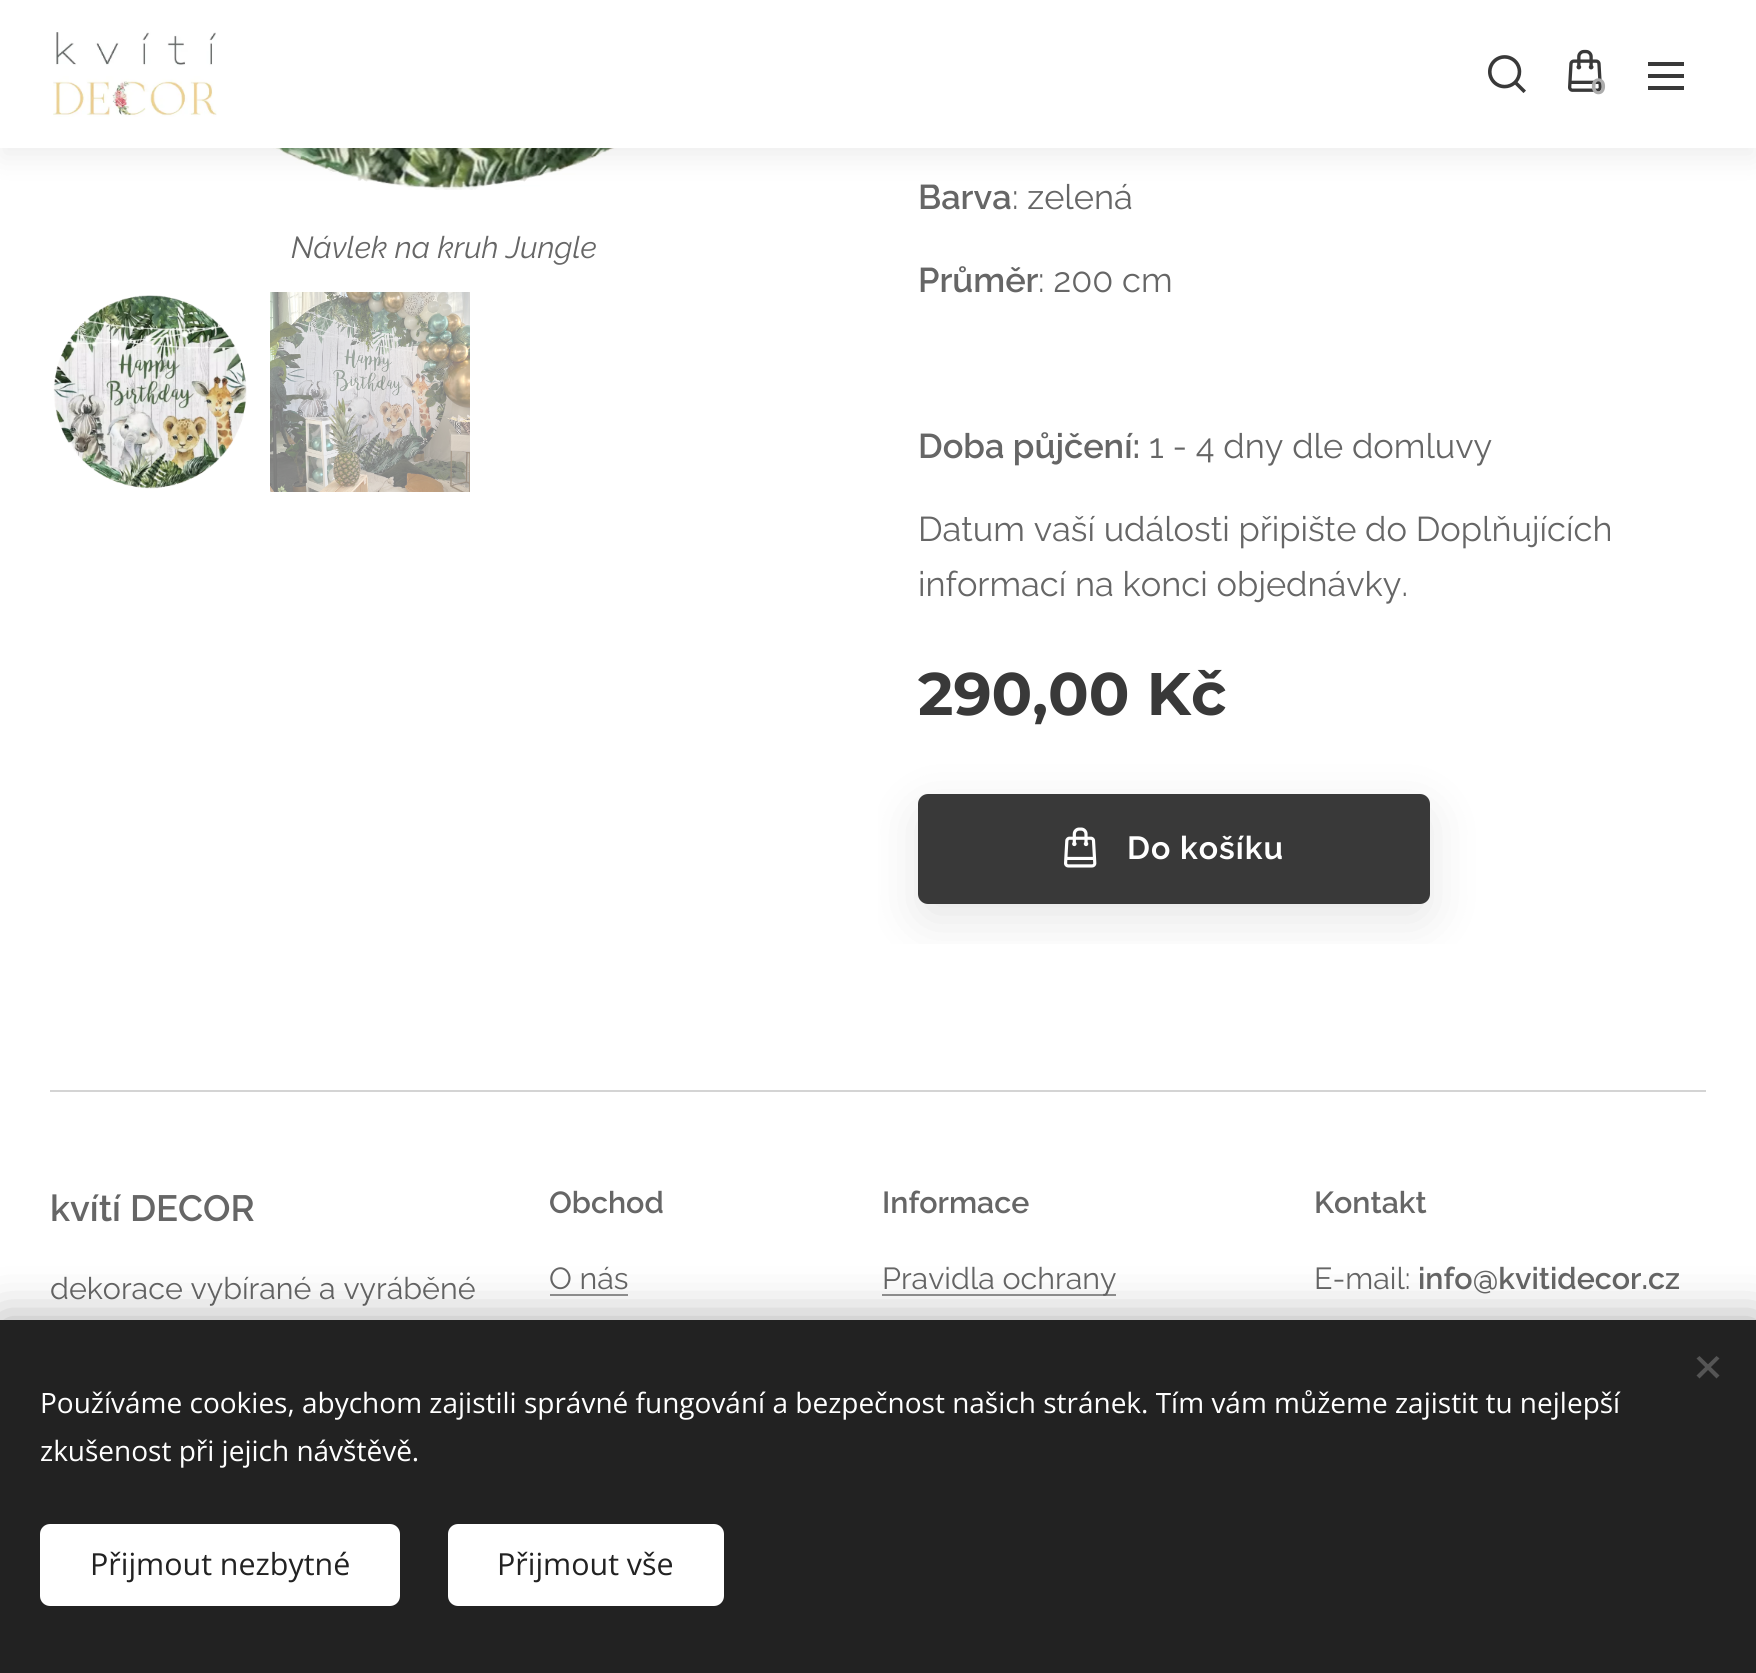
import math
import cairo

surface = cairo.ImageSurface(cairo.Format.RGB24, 1756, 1673)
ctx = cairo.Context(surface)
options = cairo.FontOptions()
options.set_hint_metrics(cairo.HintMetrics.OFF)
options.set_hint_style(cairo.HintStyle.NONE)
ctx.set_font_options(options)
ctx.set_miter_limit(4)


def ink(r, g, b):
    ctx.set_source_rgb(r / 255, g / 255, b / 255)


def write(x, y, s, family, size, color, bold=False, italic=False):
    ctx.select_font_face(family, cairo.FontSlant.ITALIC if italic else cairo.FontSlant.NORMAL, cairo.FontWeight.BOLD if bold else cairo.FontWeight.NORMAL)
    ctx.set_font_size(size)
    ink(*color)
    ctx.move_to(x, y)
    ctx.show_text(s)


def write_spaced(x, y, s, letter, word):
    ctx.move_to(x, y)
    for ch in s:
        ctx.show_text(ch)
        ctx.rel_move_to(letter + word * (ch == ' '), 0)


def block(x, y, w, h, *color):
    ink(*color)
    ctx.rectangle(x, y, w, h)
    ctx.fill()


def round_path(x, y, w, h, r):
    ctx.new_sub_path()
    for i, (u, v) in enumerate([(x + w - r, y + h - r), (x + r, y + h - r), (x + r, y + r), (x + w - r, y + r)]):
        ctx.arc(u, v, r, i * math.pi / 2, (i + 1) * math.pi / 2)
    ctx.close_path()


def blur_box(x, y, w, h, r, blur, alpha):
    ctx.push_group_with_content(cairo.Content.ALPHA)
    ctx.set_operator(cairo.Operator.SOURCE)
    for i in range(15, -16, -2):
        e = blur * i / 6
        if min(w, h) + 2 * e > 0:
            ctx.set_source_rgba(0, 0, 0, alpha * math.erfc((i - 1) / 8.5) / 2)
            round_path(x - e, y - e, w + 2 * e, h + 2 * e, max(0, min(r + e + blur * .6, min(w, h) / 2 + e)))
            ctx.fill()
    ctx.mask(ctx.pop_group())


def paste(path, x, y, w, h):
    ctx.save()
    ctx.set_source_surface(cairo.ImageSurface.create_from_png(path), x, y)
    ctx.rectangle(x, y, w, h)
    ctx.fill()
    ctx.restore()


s1 = dict(family="Montserrat", size=22, color=(172, 172, 172), bold=True)
s2 = dict(family="Raleway", size=30.4, color=(102, 102, 102), italic=True)
s3 = dict(family="Raleway SemiBold", size=34.4, color=(102, 102, 102))
s4 = dict(family="Raleway", size=34.4, color=(102, 102, 102))
s5 = dict(family="Montserrat", size=60, color=(57, 57, 57), bold=True)
s6 = dict(family="Raleway SemiBold", size=36.5, color=(102, 102, 102))
s7 = dict(family="Raleway", size=30.4, color=(102, 102, 102))
s8 = dict(family="Raleway SemiBold", size=30.4, color=(102, 102, 102))
s9 = dict(family="Open Sans", size=28, color=(255, 255, 255))
s10 = dict(family="Open Sans", size=30.4, color=(34, 34, 34))

ink(255, 255, 255)
ctx.paint()
paste("pic4.png", 117, 148, 655, 42)
ink(0, 0, 0)
blur_box(0, 10, 1756, 148, 0, 15, 0.07)
block(0, 0, 1756, 148, 255, 255, 255)
paste("pic1.png", 53, 32, 164, 85)
paste("pic2.png", 1488, 55, 38, 38)
paste("pic3.png", 1568, 49, 34, 43)
write(1591, 94, "0", **s1)
block(1648, 74, 36, 4, 57, 57, 57)
block(1648, 62, 36, 4, 57, 57, 57)
block(1648, 86, 36, 4, 57, 57, 57)
write(291, 258, "Návlek na kruh Jungle", **s2)
paste("pic5.png", 53, 295, 194, 194)
paste("pic6.png", 270, 292, 200, 200)
write(918, 209, "Barva", **s3)
write(1012, 209, ": zelená", **s4)
write(918, 292, "Průměr", **s3)
write(1038, 292, ": 200 cm", **s4)
write(918, 458, "Doba půjčení:", **s3)
write(1149, 458, "1 - 4 dny dle domluvy", **s4)
write(918, 541, "Datum vaší události připište do Doplňujících", **s4)
write(918, 596, "informací na konci objednávky.", **s4)
write(918, 715, "290,00 Kč", **s5)
ctx.save()
ctx.rectangle(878, 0, 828, 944)
ctx.clip()
ink(0, 0, 0)
blur_box(918, 810, 512, 110, 10, 25, 0.1)
ctx.restore()
round_path(919, 795, 510, 108, 9)
ctx.fill_preserve()
ctx.stroke()
paste("pic7.png", 1064, 827, 33, 41)
ctx.select_font_face("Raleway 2 SemiBold")
ctx.set_font_size(32)
ink(255, 255, 255)
write_spaced(1127, 859, "Do košíku", 1, 0)
block(50, 1090, 1656, 2, 212, 212, 212)
write(50, 1221, "kvítí DECOR", **s6)
write(50, 1299, "dekorace vybírané a vyráběné", **s7)
write(549, 1213, "Obchod", **s8)
write(549, 1289, "O nás", **s7)
block(550, 1294, 78, 2, 148, 148, 148)
write(882, 1213, "Informace", **s8)
block(882, 1294, 234, 2, 148, 148, 148)
write(882, 1289, "Pravidla ochrany", **s7)
write(1314, 1213, "Kontakt", **s8)
write(1314, 1289, "E-mail:", **s7)
write(1418, 1289, "info@kvitidecor.cz", **s8)
ink(0, 0, 0)
blur_box(0, 1320, 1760, 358, 0, 25, 0.33)
block(0, 1320, 1756, 353, 34, 34, 34)
ink(85, 85, 85)
ctx.new_path()
ctx.move_to(1696.5, 1375.5)
ctx.line_to(1716.5, 1356)
ctx.line_to(1719.5, 1358.5)
ctx.line_to(1699.5, 1378.5)
ctx.close_path()
ctx.fill()
ctx.new_path()
ctx.move_to(1699.5, 1356)
ctx.line_to(1719.5, 1375.5)
ctx.line_to(1716.5, 1378.5)
ctx.line_to(1696.5, 1358.5)
ctx.close_path()
ctx.fill()
write(40, 1413, "Používáme cookies, abychom zajistili správné fungování a bezpečnost našich stránek. Tím vám můžeme zajistit tu nejlepší", **s9)
write(40, 1461, "zkušenost při jejich návštěvě.", **s9)
round_path(40, 1524, 360, 82, 10)
ctx.fill()
write(90, 1575, "Přijmout nezbytné", **s10)
ink(255, 255, 255)
round_path(448, 1524, 276, 82, 10)
ctx.fill()
write(497, 1575, "Přijmout vše", **s10)
surface.write_to_png("screenshot.png")
